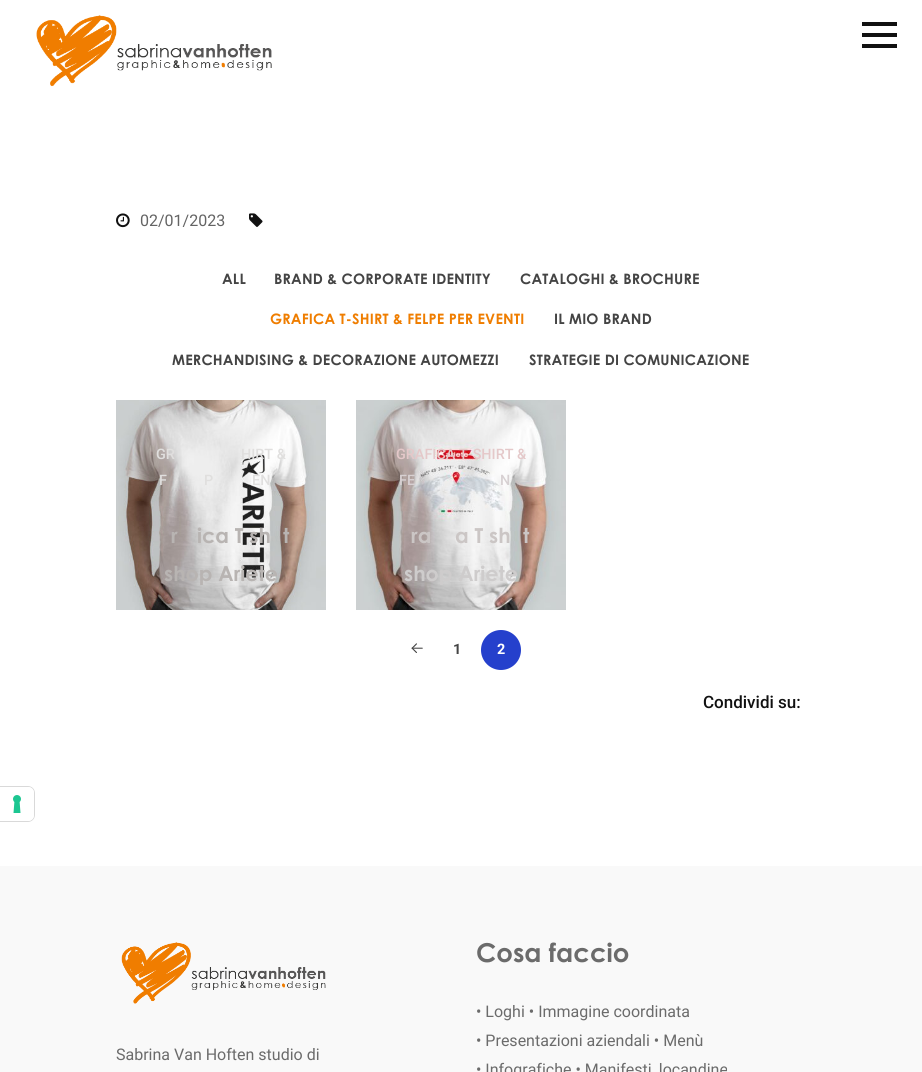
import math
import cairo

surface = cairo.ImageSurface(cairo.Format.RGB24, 922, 1072)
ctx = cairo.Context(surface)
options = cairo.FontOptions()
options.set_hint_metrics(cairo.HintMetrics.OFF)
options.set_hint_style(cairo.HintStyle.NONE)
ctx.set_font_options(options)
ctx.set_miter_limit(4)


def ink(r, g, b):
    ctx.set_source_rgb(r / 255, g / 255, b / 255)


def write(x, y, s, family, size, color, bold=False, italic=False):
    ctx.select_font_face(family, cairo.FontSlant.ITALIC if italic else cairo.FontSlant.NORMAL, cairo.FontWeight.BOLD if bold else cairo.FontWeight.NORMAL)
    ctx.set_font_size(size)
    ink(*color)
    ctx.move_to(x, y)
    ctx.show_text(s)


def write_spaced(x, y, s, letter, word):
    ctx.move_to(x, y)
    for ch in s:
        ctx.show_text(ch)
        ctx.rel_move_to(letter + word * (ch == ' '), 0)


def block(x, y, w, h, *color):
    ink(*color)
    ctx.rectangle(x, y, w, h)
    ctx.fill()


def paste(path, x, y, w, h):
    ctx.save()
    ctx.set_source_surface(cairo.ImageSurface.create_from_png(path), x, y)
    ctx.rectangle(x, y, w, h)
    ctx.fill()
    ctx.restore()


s1 = dict(family="Roboto", size=16, color=(100, 100, 100))
s2 = dict(family="Roboto Medium", size=14.4, color=(224, 223, 222))
s3 = dict(family="Century Gothic", size=20.75, color=(184, 180, 178), bold=True)
s4 = dict(family="Roboto Medium", size=14.4, color=(228, 200, 201))
s5 = dict(family="Roboto Medium", size=14.4, color=(215, 208, 210))
s6 = dict(family="Century Gothic", size=20.75, color=(203, 198, 197), bold=True)
s7 = dict(family="Century Gothic", size=20.75, color=(206, 204, 204), bold=True)
s8 = dict(family="Roboto Medium", size=17, color=(17, 17, 17))
s9 = dict(family="Roboto", size=16, color=(107, 107, 107))
s10 = dict(family="Century Gothic", size=26, color=(107, 107, 107), bold=True)

ink(255, 255, 255)
ctx.paint()
ctx.new_path()
ctx.move_to(-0.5, 786.5)
ctx.line_to(28, 786.5)
ctx.curve_to(31.5, 786.5, 34.5, 789.5, 34.5, 793)
ctx.line_to(34.5, 815)
ctx.curve_to(34.5, 818.5, 31.5, 821.5, 28, 821.5)
ctx.line_to(-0.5, 821.5)
ctx.close_path()
ink(217, 217, 217)
ctx.set_line_width(1)
ctx.stroke()
ink(255, 255, 255)
ctx.new_path()
ctx.move_to(0, 787)
ctx.line_to(28, 787)
ctx.curve_to(31.5, 787, 34, 789.5, 34, 793)
ctx.line_to(34, 815)
ctx.curve_to(34, 818.5, 31.5, 821, 28, 821)
ctx.line_to(0, 821)
ctx.close_path()
ctx.fill()
paste("pic1.png", 13, 795, 8, 18)
paste("pic2.png", 36, 15, 236, 72)
block(862, 22, 35, 4, 17, 17, 17)
block(862, 33, 35, 4, 17, 17, 17)
block(862, 44, 35, 4, 17, 17, 17)
paste("pic3.png", 116, 213, 14, 15)
write(140, 226, "02/01/2023", **s1)
paste("pic4.png", 249, 213, 14, 14)
ctx.select_font_face("Century Gothic", cairo.FontSlant.NORMAL, cairo.FontWeight.BOLD)
ctx.set_font_size(14.4)
ink(68, 68, 68)
write_spaced(222, 284, "ALL", 0.2, 0)
write_spaced(274, 284, "BRAND & CORPORATE IDENTITY", 0.2, 0)
write_spaced(520, 284, "CATALOGHI & BROCHURE", 0.2, 0)
ink(239, 125, 0)
write_spaced(270, 324, "GRAFICA T-SHIRT & FELPE PER EVENTI", 0.2, 0)
ink(68, 68, 68)
write_spaced(554, 324, "IL MIO BRAND", 0.2, 0)
write_spaced(172, 365, "MERCHANDISING & DECORAZIONE AUTOMEZZI", 0.2, 0)
write_spaced(529, 365, "STRATEGIE DI COMUNICAZIONE", 0.2, 0)
paste("pic5.png", 116, 400, 210, 210)
write(156, 459, "GR", **s2)
write(241, 459, "HIRT &", **s2)
write(159, 485, "F", **s2)
write(204, 485, "P", **s2)
write(252, 485, "EN", **s2)
write(171, 543, "r", **s3)
write(197, 543, "ica T sh", **s3)
write(283, 543, "t", **s3)
write(164, 581, "shop Ariete", **s3)
paste("pic6.png", 356, 400, 210, 210)
write(396, 459, "GRAFICA T-SHIRT &", **s4)
write(399, 485, "FE", **s5)
write(500, 485, "N", **s5)
write(411, 543, "ra", **s6)
write(455, 543, "a T sh", **s6)
write(523, 543, "t", **s6)
write(404, 581, "shop Ariete", **s7)
paste("pic7.png", 411, 643, 12, 10)
ctx.select_font_face("Roboto", cairo.FontSlant.NORMAL, cairo.FontWeight.BOLD)
ctx.set_font_size(14.4)
ink(68, 68, 68)
write_spaced(453, 654, "1", 0.2, 0)
ink(37, 64, 204)
ctx.new_path()
ctx.arc(501, 650, 20, 0, 2 * math.pi)
ctx.fill()
ink(255, 255, 255)
write_spaced(497, 654, "2", 0.2, 0)
write(703, 708, "Condividi su:", **s8)
block(0, 866, 922, 206, 249, 249, 249)
paste("pic8.png", 121, 942, 205, 62)
write(116, 1060, "Sabrina Van Hoften studio di", **s9)
write(476, 962, "Cosa faccio", **s10)
write(476, 1017, "• Loghi • Immagine coordinata", **s9)
write(476, 1046, "• Presentazioni aziendali • Menù", **s9)
write(476, 1075, "• Infografiche • Manifesti, locandine", **s9)
surface.write_to_png("screenshot.png")
